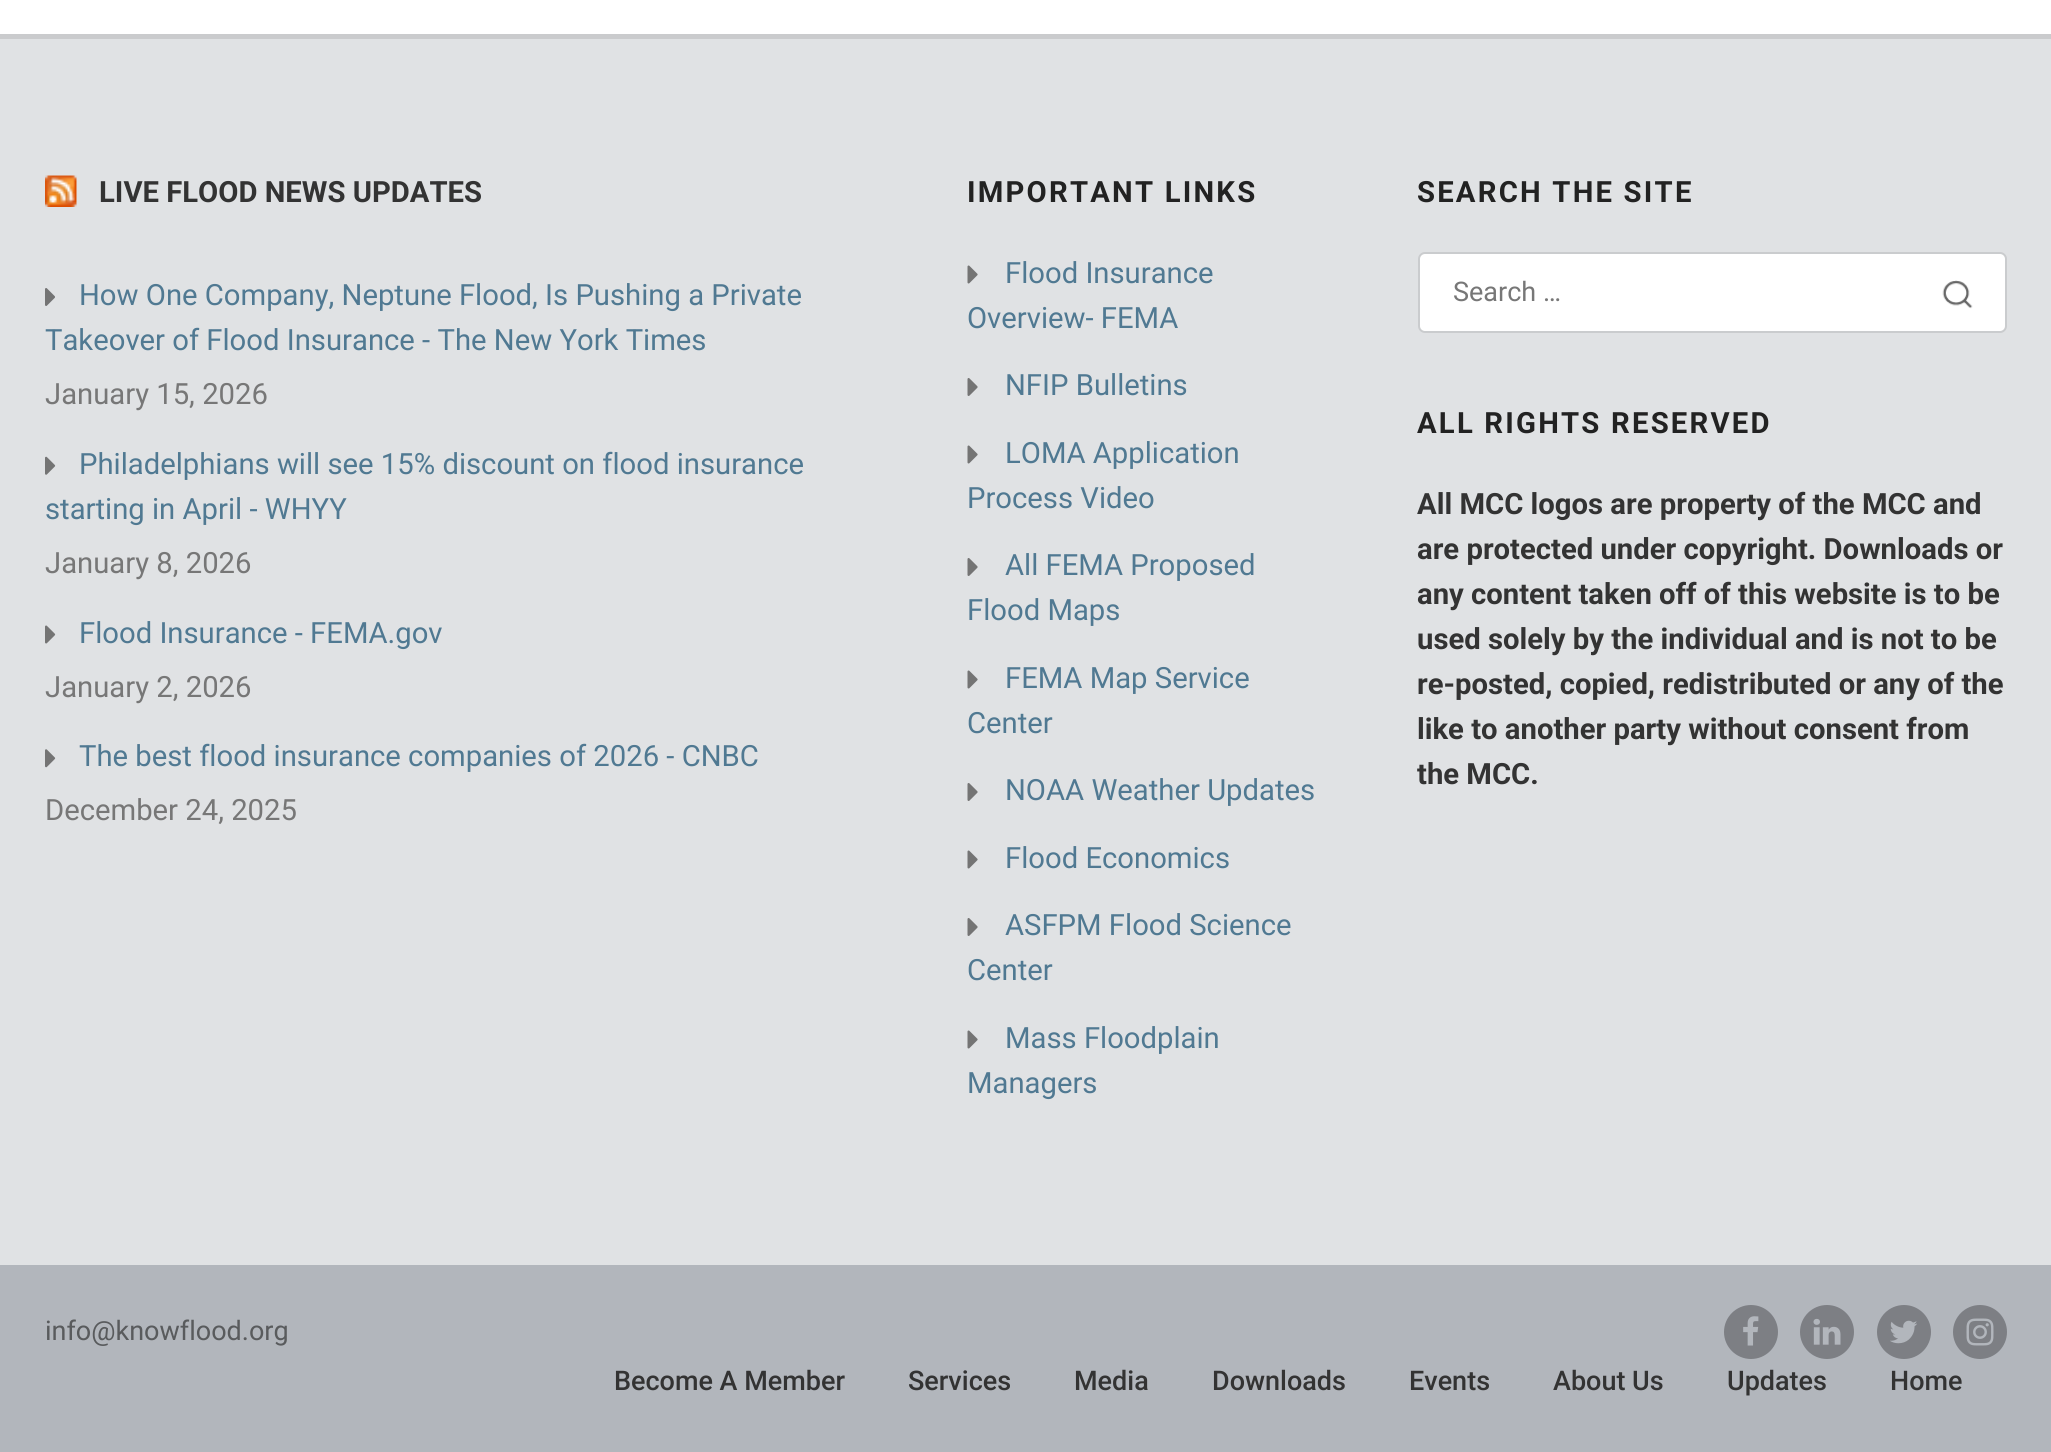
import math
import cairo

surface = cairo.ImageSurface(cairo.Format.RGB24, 2051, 1452)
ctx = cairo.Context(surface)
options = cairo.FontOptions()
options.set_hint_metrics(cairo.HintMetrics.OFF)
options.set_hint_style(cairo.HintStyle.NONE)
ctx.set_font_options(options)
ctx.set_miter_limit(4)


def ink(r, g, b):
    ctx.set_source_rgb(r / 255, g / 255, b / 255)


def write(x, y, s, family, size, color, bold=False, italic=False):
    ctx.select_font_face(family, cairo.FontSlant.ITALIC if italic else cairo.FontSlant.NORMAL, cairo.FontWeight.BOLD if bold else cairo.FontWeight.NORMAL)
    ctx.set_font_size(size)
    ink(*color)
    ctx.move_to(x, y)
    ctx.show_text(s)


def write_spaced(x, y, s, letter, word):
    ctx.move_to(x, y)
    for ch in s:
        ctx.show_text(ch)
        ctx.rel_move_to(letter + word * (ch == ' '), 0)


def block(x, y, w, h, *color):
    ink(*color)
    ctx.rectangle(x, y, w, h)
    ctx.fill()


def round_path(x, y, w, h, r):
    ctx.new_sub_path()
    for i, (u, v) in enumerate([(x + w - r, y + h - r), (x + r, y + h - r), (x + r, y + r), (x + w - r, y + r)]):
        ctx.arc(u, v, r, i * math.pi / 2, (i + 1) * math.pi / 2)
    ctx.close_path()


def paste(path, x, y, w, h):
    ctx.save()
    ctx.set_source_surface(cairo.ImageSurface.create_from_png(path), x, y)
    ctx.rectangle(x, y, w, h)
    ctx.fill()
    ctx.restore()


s1 = dict(family="Roboto", size=29.25, color=(51, 51, 51), bold=True)
s2 = dict(family="Roboto", size=29.25, color=(80, 121, 146))
s3 = dict(family="Roboto", size=29.25, color=(119, 119, 119))
s4 = dict(family="Roboto", size=27, color=(119, 119, 119))
s5 = dict(family="Roboto", size=27, color=(89, 91, 93))
s6 = dict(family="Roboto Medium", size=27, color=(51, 51, 51))

ink(255, 255, 255)
ctx.paint()
block(0, 39, 2051, 1226, 224, 226, 228)
block(0, 34, 2051, 5, 202, 203, 205)
paste("pic1.png", 45, 175, 32, 32)
write(99, 202, "LIVE FLOOD NEWS UPDATES", **s1)
paste("pic2.png", 45, 288, 10, 18)
write(79, 305, "How One Company, Neptune Flood, Is Pushing a Private", **s2)
write(45, 350, "Takeover of Flood Insurance - The New York Times", **s2)
write(45, 404, "January 15, 2026", **s3)
paste("pic3.png", 45, 456, 11, 19)
write(79, 474, "Philadelphians will see 15% discount on flood insurance", **s2)
write(45, 519, "starting in April - WHYY", **s2)
write(45, 573, "January 8, 2026", **s3)
paste("pic4.png", 45, 625, 11, 19)
write(79, 643, "Flood Insurance - FEMA.gov", **s2)
write(45, 697, "January 2, 2026", **s3)
paste("pic5.png", 45, 749, 11, 19)
write(79, 766, "The best flood insurance companies of 2026 - CNBC", **s2)
write(45, 820, "December 24, 2025", **s3)
ctx.select_font_face("Roboto", cairo.FontSlant.NORMAL, cairo.FontWeight.BOLD)
ink(34, 34, 34)
write_spaced(967, 202, "IMPORTANT LINKS", 2.2, 0)
paste("pic6.png", 967, 265, 11, 19)
write(1005, 283, "Flood Insurance", **s2)
write(967, 328, "Overview- FEMA", **s2)
paste("pic7.png", 967, 378, 11, 18)
write(1005, 395, "NFIP Bulletins", **s2)
paste("pic6.png", 967, 445, 11, 19)
write(1005, 463, "LOMA Application", **s2)
write(967, 508, "Process Video", **s2)
paste("pic7.png", 967, 558, 11, 18)
write(1005, 575, "All FEMA Proposed", **s2)
write(967, 620, "Flood Maps", **s2)
paste("pic6.png", 967, 670, 11, 19)
write(1005, 688, "FEMA Map Service", **s2)
write(967, 733, "Center", **s2)
paste("pic7.png", 967, 783, 11, 18)
write(1005, 800, "NOAA Weather Updates", **s2)
paste("pic6.png", 967, 850, 11, 19)
write(1005, 868, "Flood Economics", **s2)
paste("pic7.png", 967, 918, 11, 18)
write(1005, 935, "ASFPM Flood Science", **s2)
write(967, 980, "Center", **s2)
paste("pic6.png", 967, 1030, 11, 19)
write(1005, 1048, "Mass Floodplain", **s2)
write(967, 1093, "Managers", **s2)
ctx.select_font_face("Roboto", cairo.FontSlant.NORMAL, cairo.FontWeight.BOLD)
ink(34, 34, 34)
write_spaced(1417, 202, "SEARCH THE SITE", 2.2, 0)
ink(255, 255, 255)
round_path(1420, 254, 585, 77, 5)
ctx.fill()
round_path(1419, 253, 587, 79, 6)
ctx.set_source_rgba(0, 0, 0, 0.1)
ctx.stroke()
write(1453, 301, "Search …", **s4)
paste("pic8.png", 1942, 280, 31, 29)
ctx.select_font_face("Roboto", cairo.FontSlant.NORMAL, cairo.FontWeight.BOLD)
ctx.set_font_size(29.25)
ink(34, 34, 34)
write_spaced(1417, 433, "ALL RIGHTS RESERVED", 2.2, 0)
write(1417, 514, "All MCC logos are property of the MCC and", **s1)
write(1417, 559, "are protected under copyright. Downloads or", **s1)
write(1417, 604, "any content taken off of this website is to be", **s1)
write(1417, 649, "used solely by the individual and is not to be", **s1)
write(1417, 694, "re-posted, copied, redistributed or any of the", **s1)
write(1417, 739, "like to another party without consent from", **s1)
write(1417, 784, "the MCC.", **s1)
block(0, 1265, 2051, 187, 178, 182, 188)
write(45, 1340, "info@knowflood.org", **s5)
ink(125, 127, 132)
ctx.new_path()
ctx.arc(1751, 1332, 27, 0, 2 * math.pi)
ctx.fill()
paste("pic9.png", 1743, 1316, 16, 30)
ctx.arc(1827, 1332, 27, 0, 2 * math.pi)
ctx.fill()
paste("pic10.png", 1813, 1318, 28, 27)
ctx.arc(1904, 1332, 27, 0, 2 * math.pi)
ctx.fill()
paste("pic11.png", 1890, 1320, 27, 24)
ctx.arc(1980, 1332, 27, 0, 2 * math.pi)
ctx.fill()
paste("pic12.png", 1966, 1318, 28, 28)
write(614, 1390, "Become A Member", **s6)
write(908, 1390, "Services", **s6)
write(1074, 1390, "Media", **s6)
write(1212, 1390, "Downloads", **s6)
write(1409, 1390, "Events", **s6)
write(1553, 1390, "About Us", **s6)
write(1727, 1390, "Updates", **s6)
write(1890, 1390, "Home", **s6)
surface.write_to_png("screenshot.png")
